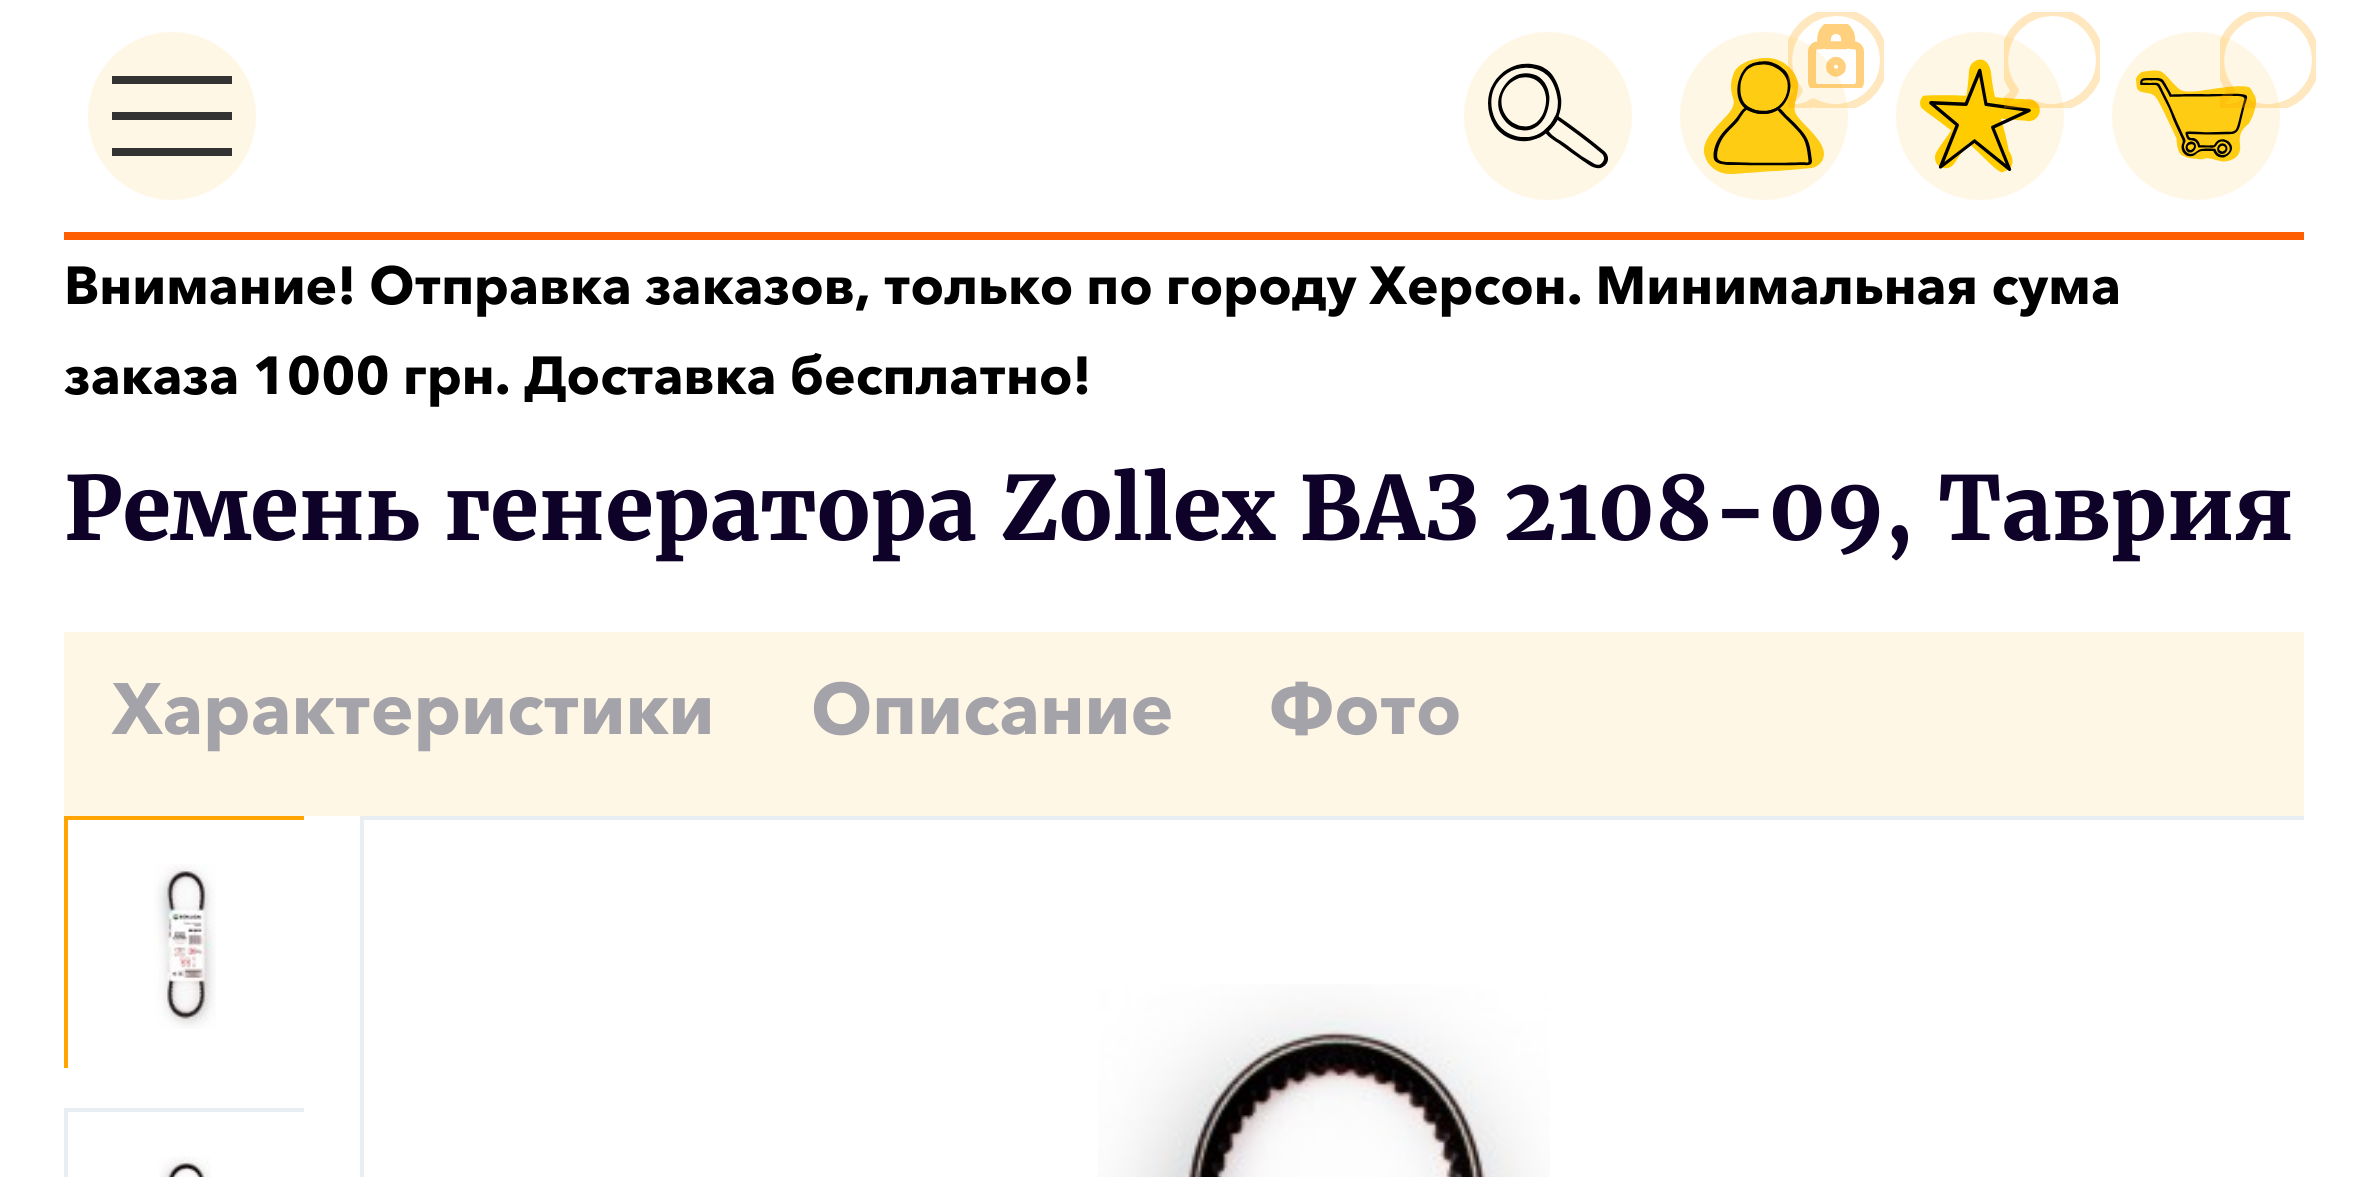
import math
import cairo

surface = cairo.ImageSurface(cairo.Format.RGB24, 2365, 1177)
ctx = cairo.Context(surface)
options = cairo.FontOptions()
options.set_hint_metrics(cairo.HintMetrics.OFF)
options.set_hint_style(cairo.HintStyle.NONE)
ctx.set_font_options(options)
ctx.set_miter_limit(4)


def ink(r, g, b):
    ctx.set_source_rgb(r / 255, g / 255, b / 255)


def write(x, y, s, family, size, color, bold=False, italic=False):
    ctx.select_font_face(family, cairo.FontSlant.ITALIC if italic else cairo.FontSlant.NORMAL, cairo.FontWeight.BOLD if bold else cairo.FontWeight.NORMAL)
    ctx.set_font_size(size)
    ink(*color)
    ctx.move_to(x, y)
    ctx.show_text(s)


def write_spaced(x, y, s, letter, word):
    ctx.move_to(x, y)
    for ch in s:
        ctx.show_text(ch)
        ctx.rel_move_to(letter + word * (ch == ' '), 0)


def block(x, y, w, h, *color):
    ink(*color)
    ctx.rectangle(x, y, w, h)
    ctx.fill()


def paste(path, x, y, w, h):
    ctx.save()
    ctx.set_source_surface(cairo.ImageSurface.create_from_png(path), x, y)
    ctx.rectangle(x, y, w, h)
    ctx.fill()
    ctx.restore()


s1 = dict(family="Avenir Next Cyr", size=53.1, color=(0, 0, 0), bold=True)
s2 = dict(family="Merriweather", size=88, color=(14, 2, 41), bold=True)
s3 = dict(family="Avenir Next Cyr", size=72, color=(165, 163, 170), bold=True)

ink(255, 255, 255)
ctx.paint()
block(64, 232, 2240, 8, 255, 95, 3)
ink(255, 247, 230)
ctx.arc(172, 116, 84, 0, 2 * math.pi)
ctx.fill()
block(112, 76, 120, 8, 51, 51, 51)
block(112, 112, 120, 8, 51, 51, 51)
block(112, 148, 120, 8, 51, 51, 51)
ink(255, 247, 230)
ctx.arc(1548, 116, 84, 0, 2 * math.pi)
ctx.fill()
paste("pic1.png", 1488, 63, 120, 106)
ctx.arc(1764, 116, 84, 0, 2 * math.pi)
ctx.fill()
paste("pic2.png", 1704, 58, 120, 116)
paste("pic3.png", 1788, 12, 96, 96)
paste("pic4.png", 1808, 24, 56, 64)
ctx.arc(1980, 116, 84, 0, 2 * math.pi)
ctx.fill()
paste("pic5.png", 1920, 59, 120, 114)
paste("pic6.png", 2004, 12, 96, 96)
ctx.arc(2196, 116, 84, 0, 2 * math.pi)
ctx.fill()
paste("pic7.png", 2136, 70, 120, 92)
paste("pic8.png", 2220, 12, 96, 96)
ctx.select_font_face("Avenir Next Cyr", cairo.FontSlant.NORMAL, cairo.FontWeight.BOLD)
ctx.set_font_size(53.1)
ink(0, 0, 0)
write_spaced(64, 304, "Внимание! Отправка заказов, только по городу Херсон. Минимальная сума", 0, -0.25)
write(64, 394, "заказа 1000 грн. Доставка бесплатно!", **s1)
write(64, 540, "Ремень генератора Zollex ВАЗ 2108-09, Таврия", **s2)
block(64, 632, 2240, 184, 255, 247, 230)
write(112, 734, "Характеристики", **s3)
write(811, 734, "Описание", **s3)
write(1269, 734, "Фото", **s3)
block(64, 816, 240, 4, 255, 164, 0)
block(64, 816, 4, 252, 255, 164, 0)
paste("pic9.png", 154, 864, 62, 165)
block(64, 1108, 240, 4, 233, 238, 242)
block(64, 1108, 4, 69, 233, 238, 242)
paste("pic10.png", 159, 1156, 52, 21)
block(360, 816, 1944, 4, 233, 238, 242)
block(360, 816, 4, 361, 233, 238, 242)
paste("pic11.png", 1098, 984, 452, 193)
surface.write_to_png("screenshot.png")
